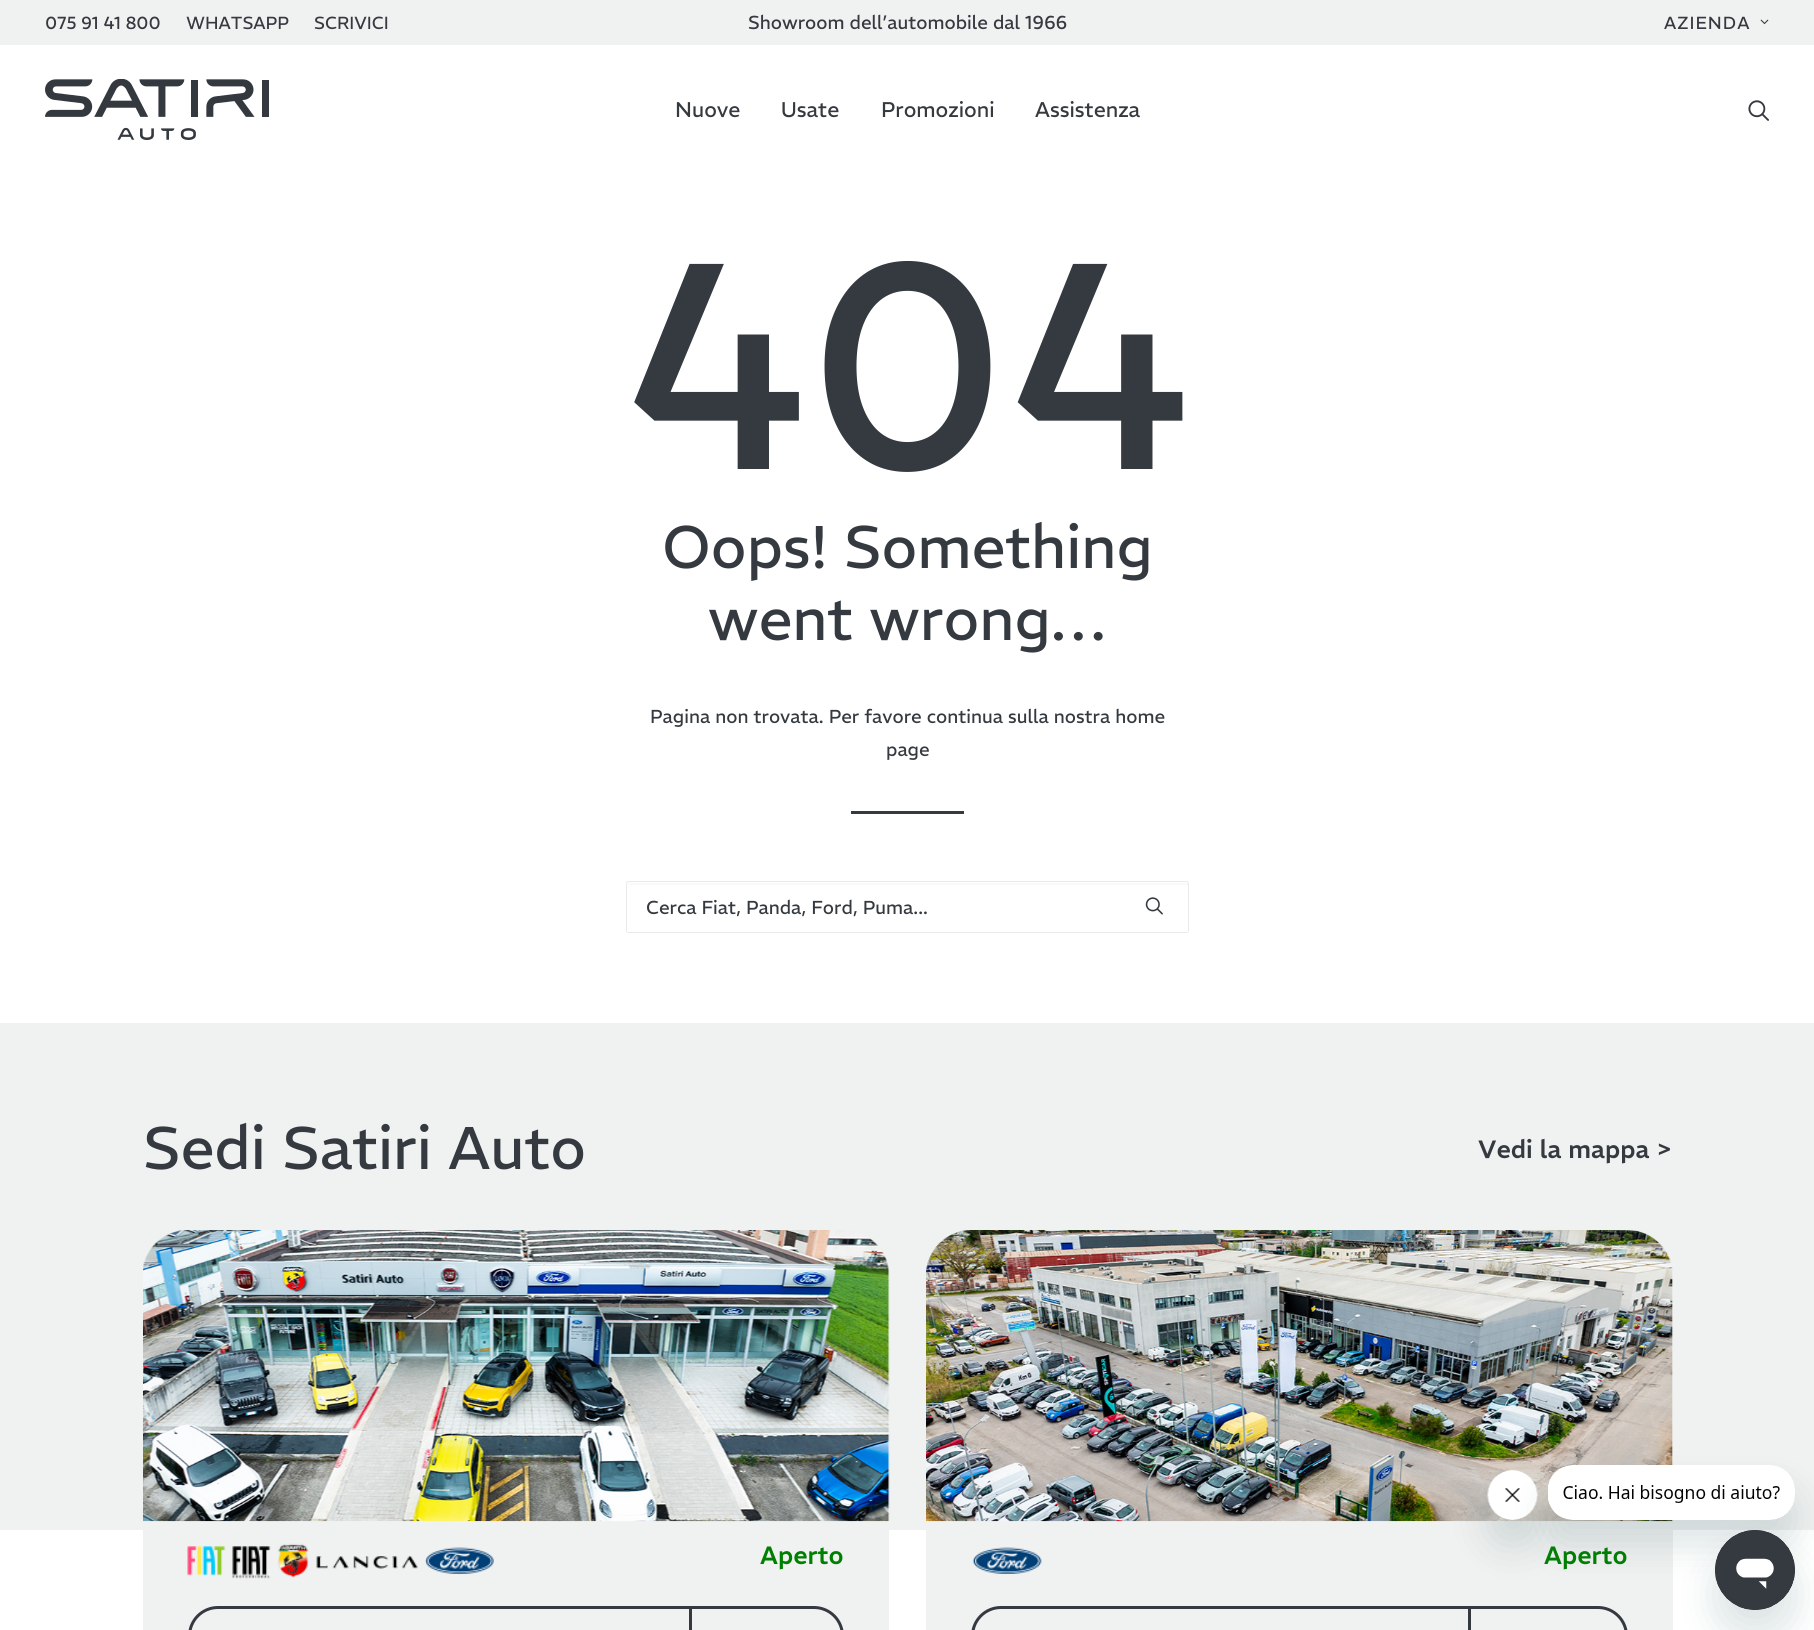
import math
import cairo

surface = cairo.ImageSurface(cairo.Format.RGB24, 1814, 1630)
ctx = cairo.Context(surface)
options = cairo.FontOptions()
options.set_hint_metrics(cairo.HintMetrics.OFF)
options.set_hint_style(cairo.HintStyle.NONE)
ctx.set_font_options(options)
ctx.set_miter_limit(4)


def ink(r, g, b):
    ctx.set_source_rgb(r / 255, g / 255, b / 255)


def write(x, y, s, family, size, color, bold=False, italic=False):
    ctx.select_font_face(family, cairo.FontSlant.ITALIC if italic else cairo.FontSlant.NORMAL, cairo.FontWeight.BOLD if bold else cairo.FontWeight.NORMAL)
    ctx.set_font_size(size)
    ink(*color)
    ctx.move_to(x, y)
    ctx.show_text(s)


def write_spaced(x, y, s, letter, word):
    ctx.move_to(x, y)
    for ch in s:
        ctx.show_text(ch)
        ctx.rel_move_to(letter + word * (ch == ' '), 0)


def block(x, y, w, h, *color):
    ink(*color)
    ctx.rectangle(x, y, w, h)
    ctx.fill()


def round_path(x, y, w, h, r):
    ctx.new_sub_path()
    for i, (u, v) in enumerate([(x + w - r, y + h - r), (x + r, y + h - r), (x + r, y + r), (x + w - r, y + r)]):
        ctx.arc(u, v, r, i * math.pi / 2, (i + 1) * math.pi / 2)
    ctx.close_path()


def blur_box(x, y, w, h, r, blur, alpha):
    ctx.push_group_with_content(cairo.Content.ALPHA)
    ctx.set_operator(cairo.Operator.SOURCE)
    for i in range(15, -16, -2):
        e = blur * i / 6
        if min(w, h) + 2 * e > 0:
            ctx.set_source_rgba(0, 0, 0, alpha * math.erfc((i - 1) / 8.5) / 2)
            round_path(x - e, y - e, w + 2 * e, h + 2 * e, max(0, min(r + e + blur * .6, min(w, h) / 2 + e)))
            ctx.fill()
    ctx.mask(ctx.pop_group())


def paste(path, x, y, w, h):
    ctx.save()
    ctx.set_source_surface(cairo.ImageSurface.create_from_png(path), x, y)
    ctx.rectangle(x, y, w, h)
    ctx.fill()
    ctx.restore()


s1 = dict(family="REM", size=17.5, color=(52, 58, 64))
s2 = dict(family="REM", size=18.75, color=(52, 58, 64))
s3 = dict(family="REM", size=21.25, color=(52, 58, 64))
s4 = dict(family="REM", size=293, color=(52, 58, 64))
s5 = dict(family="REM", size=60, color=(52, 58, 64))
s6 = dict(family="REM Medium", size=25, color=(52, 58, 64))
s7 = dict(family="REM Medium", size=25, color=(0, 128, 0))

ink(255, 255, 255)
ctx.paint()
block(0, 0, 1814, 45, 240, 241, 241)
write(45, 29, "075 91 41 800", **s1)
write(186, 29, "WHATSAPP", **s1)
write(314, 29, "SCRIVICI", **s1)
write(748, 29, "Showroom dell’automobile dal 1966", **s2)
ctx.set_font_size(17.5)
write_spaced(1664, 29, "AZIENDA", 1, 0)
paste("pic1.png", 1760, 19, 9, 6)
paste("pic2.png", 45, 79, 224, 61)
write(675, 117, "Nuove", **s3)
write(781, 117, "Usate", **s3)
write(881, 117, "Promozioni", **s3)
write(1035, 117, "Assistenza", **s3)
paste("pic3.png", 1748, 100, 21, 21)
write(626, 469, "404", **s4)
write(662, 568, "Oops! Something", **s5)
write(708, 640, "went wrong…", **s5)
write(650, 723, "Pagina non trovata. Per favore continua sulla nostra home", **s2)
write(886, 756, "page", **s2)
block(851, 811, 113, 3, 52, 58, 64)
ink(249, 249, 249)
ctx.new_path()
ctx.move_to(629, 885)
ctx.line_to(1186, 885)
ctx.line_to(1188, 886)
ctx.line_to(1188, 883)
ctx.line_to(1187, 883)
ctx.line_to(629, 883)
ctx.curve_to(628, 883, 628, 885, 628, 886)
ctx.close_path()
ctx.fill()
round_path(626.5, 881.5, 562, 51, 2)
ink(234, 234, 234)
ctx.set_line_width(1)
ctx.stroke()
write(646, 914, "Cerca Fiat, Panda, Ford, Puma...", **s2)
paste("pic4.png", 1145, 897, 18, 18)
block(0, 1023, 1814, 507, 240, 241, 241)
write(143, 1169, "Sedi Satiri Auto", **s5)
write(1478, 1158, "Vedi la mappa >", **s6)
ink(240, 241, 241)
round_path(143, 1230, 746, 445, 45)
ctx.fill()
paste("pic5.png", 143, 1230, 747, 292)
paste("pic6.png", 187, 1543, 307, 36)
write(760, 1564, "Aperto", **s7)
round_path(189.5, 1607.5, 653, 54, 28.5)
ink(52, 58, 64)
ctx.set_line_width(3)
ctx.stroke()
block(689, 1609, 3, 21, 52, 58, 64)
ink(240, 241, 241)
round_path(926, 1230, 747, 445, 45)
ctx.fill()
paste("pic7.png", 926, 1230, 747, 292)
paste("pic8.png", 972, 1547, 70, 27)
write(1544, 1564, "Aperto", **s7)
round_path(972.5, 1607.5, 654, 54, 28.5)
ink(52, 58, 64)
ctx.stroke()
block(1468, 1609, 3, 21, 52, 58, 64)
ink(23, 73, 77)
blur_box(1488, 1495, 50, 50, 25, 19, 0.15)
paste("pic10.png", 1487, 1470, 51, 50)
blur_box(1548, 1490, 247, 55, 25, 19, 0.15)
paste("pic9.png", 1548, 1465, 247, 55)
blur_box(1715, 1555, 80, 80, 40, 19, 0.15)
paste("pic11.png", 1715, 1530, 80, 80)
surface.write_to_png("screenshot.png")
